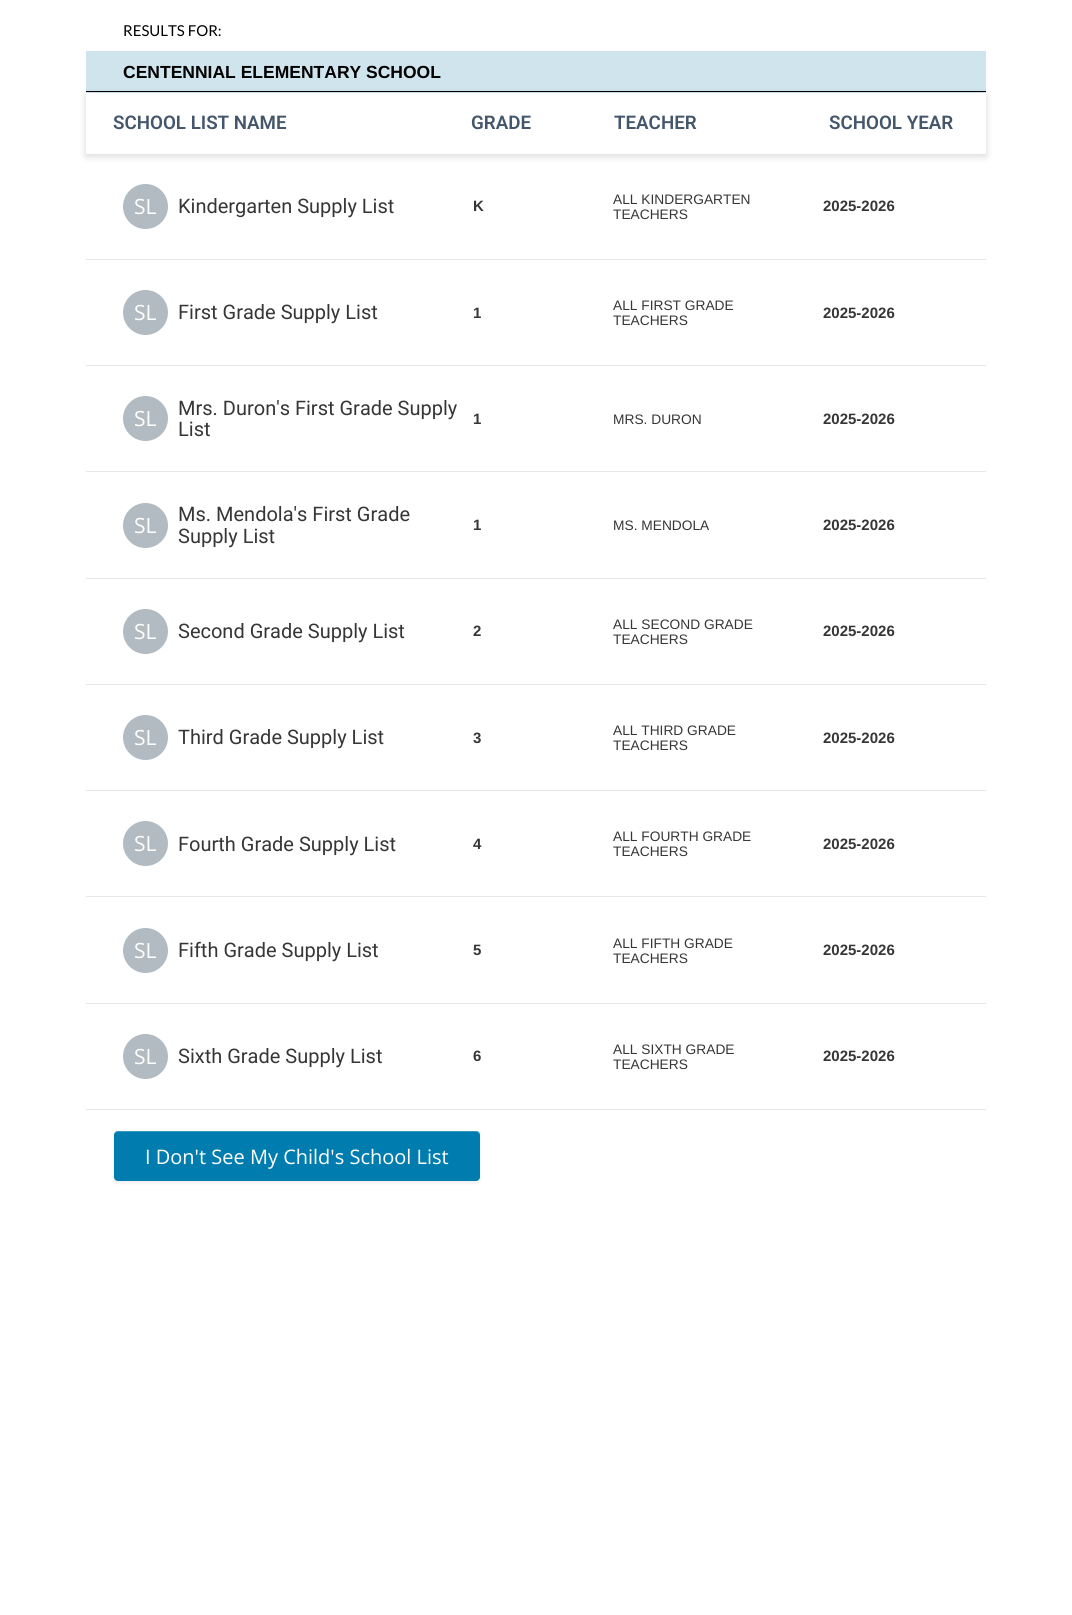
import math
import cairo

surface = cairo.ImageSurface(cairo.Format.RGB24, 1072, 1615)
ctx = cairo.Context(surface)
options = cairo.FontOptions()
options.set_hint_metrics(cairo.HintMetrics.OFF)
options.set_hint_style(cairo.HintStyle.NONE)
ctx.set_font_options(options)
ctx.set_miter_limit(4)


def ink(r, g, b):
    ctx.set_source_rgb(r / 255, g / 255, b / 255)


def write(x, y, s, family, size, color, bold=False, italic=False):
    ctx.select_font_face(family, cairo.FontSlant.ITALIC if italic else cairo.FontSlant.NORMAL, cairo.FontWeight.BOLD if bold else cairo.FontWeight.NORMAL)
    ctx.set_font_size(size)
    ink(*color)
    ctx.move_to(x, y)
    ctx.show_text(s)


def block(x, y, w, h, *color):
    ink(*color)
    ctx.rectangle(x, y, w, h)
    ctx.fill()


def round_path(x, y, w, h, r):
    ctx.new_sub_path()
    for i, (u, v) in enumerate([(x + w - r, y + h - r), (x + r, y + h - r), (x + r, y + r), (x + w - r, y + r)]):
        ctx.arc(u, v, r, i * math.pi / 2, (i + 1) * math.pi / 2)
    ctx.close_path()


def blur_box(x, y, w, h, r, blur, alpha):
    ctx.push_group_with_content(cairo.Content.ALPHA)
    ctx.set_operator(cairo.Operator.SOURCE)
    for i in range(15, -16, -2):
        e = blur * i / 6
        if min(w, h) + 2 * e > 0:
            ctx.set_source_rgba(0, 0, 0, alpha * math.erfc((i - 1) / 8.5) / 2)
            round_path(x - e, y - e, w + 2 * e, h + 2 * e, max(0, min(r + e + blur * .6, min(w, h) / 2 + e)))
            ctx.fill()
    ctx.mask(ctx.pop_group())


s1 = dict(family="Lato", size=15, color=(0, 0, 0))
s2 = dict(family="Liberation Sans", size=17.5, color=(0, 0, 0), bold=True)
s3 = dict(family="Roboto SemiBold", size=18.75, color=(68, 86, 108))
s4 = dict(family="Open Sans", size=21, color=(255, 255, 255))
s5 = dict(family="Roboto", size=20, color=(54, 54, 54))
s6 = dict(family="Liberation Sans", size=15, color=(54, 54, 54), bold=True)
s7 = dict(family="Liberation Sans", size=13.75, color=(54, 54, 54))
s8 = dict(family="Open Sans", size=20, color=(255, 255, 255))

ink(255, 255, 255)
ctx.paint()
write(123, 36, "RESULTS FOR:", **s1)
block(86, 51, 900, 42, 208, 228, 237)
block(86, 91, 900, 1, 0, 0, 0)
write(123, 78, "CENTENNIAL ELEMENTARY SCHOOL", **s2)
ink(0, 0, 0)
blur_box(86, 95, 900, 61, 0, 4, 0.16)
block(86, 93, 900, 61, 255, 255, 255)
write(113, 129, "SCHOOL LIST NAME", **s3)
write(471, 129, "GRADE", **s3)
write(614, 129, "TEACHER", **s3)
write(829, 129, "SCHOOL YEAR", **s3)
block(86, 259, 900, 1, 230, 230, 230)
ink(179, 187, 194)
ctx.new_path()
ctx.arc(145.5, 206.5, 22.5, 0, 2 * math.pi)
ctx.fill()
write(134, 214, "SL", **s4)
write(178, 213, "Kindergarten Supply List", **s5)
write(473, 211, "K", **s6)
write(613, 204, "ALL KINDERGARTEN", **s7)
write(613, 219, "TEACHERS", **s7)
write(823, 211, "2025-2026", **s6)
block(86, 365, 900, 1, 230, 230, 230)
ink(179, 187, 194)
ctx.new_path()
ctx.arc(145.5, 312.5, 22.5, 0, 2 * math.pi)
ctx.fill()
write(134, 320, "SL", **s4)
write(178, 319, "First Grade Supply List", **s5)
write(473, 318, "1", **s6)
write(613, 310, "ALL FIRST GRADE", **s7)
write(613, 325, "TEACHERS", **s7)
write(823, 318, "2025-2026", **s6)
block(86, 471, 900, 1, 230, 230, 230)
ink(179, 187, 194)
ctx.new_path()
ctx.arc(145.5, 418.5, 22.5, 0, 2 * math.pi)
ctx.fill()
write(134, 426, "SL", **s4)
write(178, 415, "Mrs. Duron's First Grade Supply", **s5)
write(178, 436, "List", **s5)
write(473, 424, "1", **s6)
write(613, 424, "MRS. DURON", **s7)
write(823, 424, "2025-2026", **s6)
block(86, 578, 900, 1, 230, 230, 230)
ink(179, 187, 194)
ctx.new_path()
ctx.arc(145.5, 525.5, 22.5, 0, 2 * math.pi)
ctx.fill()
write(134, 533, "SL", **s4)
write(178, 521, "Ms. Mendola's First Grade", **s5)
write(178, 543, "Supply List", **s5)
write(473, 530, "1", **s6)
write(613, 530, "MS. MENDOLA", **s7)
write(823, 530, "2025-2026", **s6)
block(86, 684, 900, 1, 230, 230, 230)
ink(179, 187, 194)
ctx.new_path()
ctx.arc(145.5, 631.5, 22.5, 0, 2 * math.pi)
ctx.fill()
write(134, 639, "SL", **s4)
write(178, 638, "Second Grade Supply List", **s5)
write(473, 636, "2", **s6)
write(613, 629, "ALL SECOND GRADE", **s7)
write(613, 644, "TEACHERS", **s7)
write(823, 636, "2025-2026", **s6)
block(86, 790, 900, 1, 230, 230, 230)
ink(179, 187, 194)
ctx.new_path()
ctx.arc(145.5, 737.5, 22.5, 0, 2 * math.pi)
ctx.fill()
write(134, 745, "SL", **s4)
write(178, 744, "Third Grade Supply List", **s5)
write(473, 743, "3", **s6)
write(613, 735, "ALL THIRD GRADE", **s7)
write(613, 750, "TEACHERS", **s7)
write(823, 743, "2025-2026", **s6)
block(86, 896, 900, 1, 230, 230, 230)
ink(179, 187, 194)
ctx.new_path()
ctx.arc(145.5, 843.5, 22.5, 0, 2 * math.pi)
ctx.fill()
write(134, 851, "SL", **s4)
write(178, 851, "Fourth Grade Supply List", **s5)
write(473, 849, "4", **s6)
write(613, 841, "ALL FOURTH GRADE", **s7)
write(613, 856, "TEACHERS", **s7)
write(823, 849, "2025-2026", **s6)
block(86, 1003, 900, 1, 230, 230, 230)
ink(179, 187, 194)
ctx.new_path()
ctx.arc(145.5, 950.5, 22.5, 0, 2 * math.pi)
ctx.fill()
write(134, 958, "SL", **s4)
write(178, 957, "Fifth Grade Supply List", **s5)
write(473, 955, "5", **s6)
write(613, 948, "ALL FIFTH GRADE", **s7)
write(613, 963, "TEACHERS", **s7)
write(823, 955, "2025-2026", **s6)
block(86, 1109, 900, 1, 230, 230, 230)
ink(179, 187, 194)
ctx.new_path()
ctx.arc(145.5, 1056.5, 22.5, 0, 2 * math.pi)
ctx.fill()
write(134, 1064, "SL", **s4)
write(178, 1063, "Sixth Grade Supply List", **s5)
write(473, 1061, "6", **s6)
write(613, 1054, "ALL SIXTH GRADE", **s7)
write(613, 1069, "TEACHERS", **s7)
write(823, 1061, "2025-2026", **s6)
ink(0, 0, 0)
blur_box(113, 1131, 368, 53, 5, 1, 0.05)
ink(0, 125, 174)
round_path(114, 1131, 366, 50, 4)
ctx.fill()
ctx.set_source_rgba(1, 1, 1, 0.2)
ctx.new_path()
ctx.move_to(118, 1132)
ctx.line_to(476, 1132)
ctx.curve_to(478, 1132, 480, 1134, 480, 1136)
ctx.line_to(479, 1133)
ctx.line_to(477, 1131)
ctx.line_to(118, 1131)
ctx.curve_to(115, 1131, 114, 1133, 114, 1136)
ctx.curve_to(114, 1134, 115, 1132, 118, 1132)
ctx.close_path()
ctx.fill()
write(145, 1164, "I Don't See My Child's School List", **s8)
surface.write_to_png("screenshot.png")
